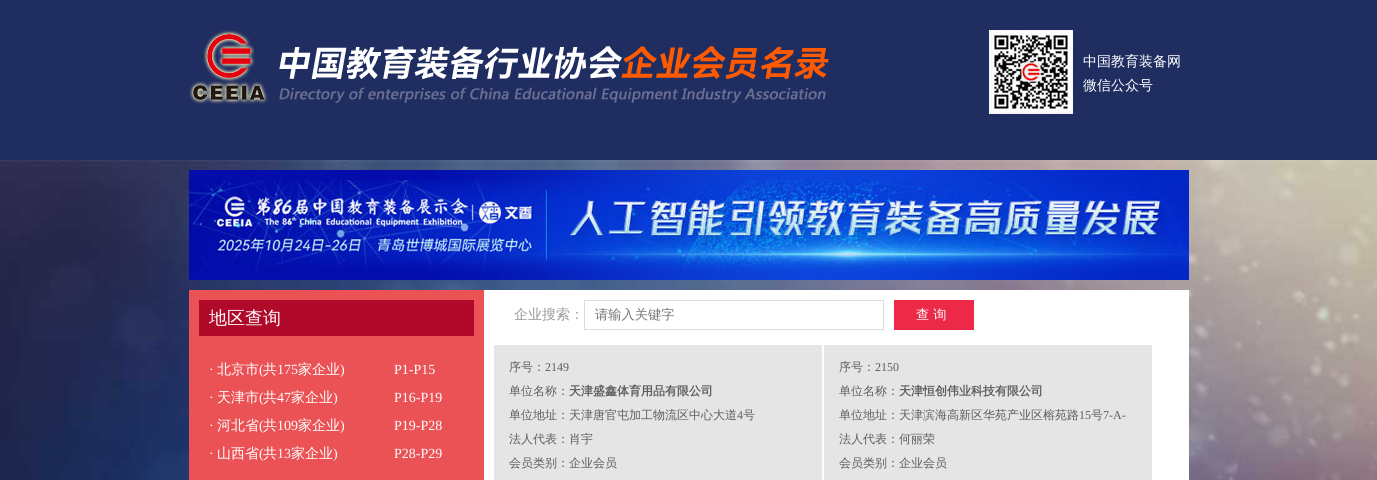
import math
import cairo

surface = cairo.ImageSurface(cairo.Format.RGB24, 1377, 480)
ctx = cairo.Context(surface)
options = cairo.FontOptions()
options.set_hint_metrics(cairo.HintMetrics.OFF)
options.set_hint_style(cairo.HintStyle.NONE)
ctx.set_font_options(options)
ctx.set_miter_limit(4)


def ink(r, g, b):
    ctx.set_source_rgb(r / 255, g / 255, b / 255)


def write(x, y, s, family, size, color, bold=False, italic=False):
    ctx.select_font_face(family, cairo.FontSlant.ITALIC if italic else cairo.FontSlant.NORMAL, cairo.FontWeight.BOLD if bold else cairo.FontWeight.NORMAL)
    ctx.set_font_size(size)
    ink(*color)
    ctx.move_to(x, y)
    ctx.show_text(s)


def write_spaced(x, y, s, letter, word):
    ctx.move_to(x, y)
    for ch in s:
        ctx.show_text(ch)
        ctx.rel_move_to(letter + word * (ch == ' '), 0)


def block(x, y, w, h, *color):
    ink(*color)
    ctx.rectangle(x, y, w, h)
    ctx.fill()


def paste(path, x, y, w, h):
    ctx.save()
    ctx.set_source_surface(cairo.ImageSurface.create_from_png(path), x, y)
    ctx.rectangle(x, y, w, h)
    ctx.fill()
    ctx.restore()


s1 = dict(family="WenQuanYi Zen Hei Medium", size=14, color=(255, 255, 255))
s2 = dict(family="WenQuanYi Zen Hei Medium", size=18, color=(255, 255, 255))
s3 = dict(family="Liberation Serif", size=14, color=(255, 255, 255))
s4 = dict(family="WenQuanYi Zen Hei Medium", size=14, color=(153, 153, 153))
s5 = dict(family="WenQuanYi Zen Hei Medium", size=13.25, color=(117, 117, 117))
s6 = dict(family="WenQuanYi Zen Hei Medium", size=12, color=(93, 93, 93))
s7 = dict(family="Liberation Serif", size=12, color=(93, 93, 93))
s8 = dict(family="WenQuanYi Zen Hei", size=12, color=(93, 93, 93), bold=True)

ink(255, 255, 255)
ctx.paint()
paste("pic1.png", 0, 160, 1377, 320)
block(0, 0, 1377, 160, 32, 45, 97)
paste("pic2.png", 189, 30, 640, 74)
paste("pic3.png", 989, 30, 84, 84)
write(1083, 66, "中国教育装备网", **s1)
write(1083, 90, "微信公众号", **s1)
paste("pic4.png", 189, 170, 1000, 110)
block(484, 290, 705, 190, 255, 255, 255)
block(189, 290, 295, 190, 235, 82, 85)
block(199, 300, 275, 36, 176, 9, 41)
write(209, 324, "地区查询", **s2)
write(209, 374, "·", **s3)
write(217, 374, "北京市", **s1)
write(259, 374, "(", **s3)
write(263, 374, "共", **s1)
write(277, 374, "175", **s3)
write(298, 374, "家企业", **s1)
write(340, 374, ")", **s3)
write(394, 374, "P1-P15", **s3)
write(209, 402, "·", **s3)
write(217, 402, "天津市", **s1)
write(259, 402, "(", **s3)
write(263, 402, "共", **s1)
write(277, 402, "47", **s3)
write(291, 402, "家企业", **s1)
write(333, 402, ")", **s3)
write(394, 402, "P16-P19", **s3)
write(209, 430, "·", **s3)
write(217, 430, "河北省", **s1)
write(259, 430, "(", **s3)
write(263, 430, "共", **s1)
write(277, 430, "109", **s3)
write(298, 430, "家企业", **s1)
write(340, 430, ")", **s3)
write(394, 430, "P19-P28", **s3)
write(209, 458, "·", **s3)
write(217, 458, "山西省", **s1)
write(259, 458, "(", **s3)
write(263, 458, "共", **s1)
write(277, 458, "13", **s3)
write(291, 458, "家企业", **s1)
write(333, 458, ")", **s3)
write(394, 458, "P28-P29", **s3)
write(514, 319, "企业搜索：", **s4)
ctx.rectangle(584.5, 300.5, 299, 29)
ink(221, 221, 221)
ctx.set_line_width(1)
ctx.stroke()
write(595, 319, "请输入关键字", **s5)
block(894, 300, 80, 30, 236, 41, 71)
ink(255, 255, 255)
write_spaced(916, 319, "查询", 4, 0)
block(494, 345, 658, 135, 229, 229, 229)
block(822, 345, 2, 135, 255, 255, 255)
write(509, 371, "序号：", **s6)
write(545, 371, "2149", **s7)
write(509, 395, "单位名称：", **s6)
write(569, 395, "天津盛鑫体育用品有限公司", **s8)
write(509, 419, "单位地址：天津唐官屯加工物流区中心大道", **s6)
write(737, 419, "4", **s7)
write(743, 419, "号", **s6)
write(509, 443, "法人代表：肖宇", **s6)
write(509, 467, "会员类别：企业会员", **s6)
write(839, 371, "序号：", **s6)
write(875, 371, "2150", **s7)
write(839, 395, "单位名称：", **s6)
write(899, 395, "天津恒创伟业科技有限公司", **s8)
write(839, 419, "单位地址：天津滨海高新区华苑产业区榕苑路", **s6)
write(1079, 419, "15", **s7)
write(1091, 419, "号", **s6)
write(1103, 419, "7-A-", **s7)
write(839, 443, "法人代表：何丽荣", **s6)
write(839, 467, "会员类别：企业会员", **s6)
surface.write_to_png("screenshot.png")
